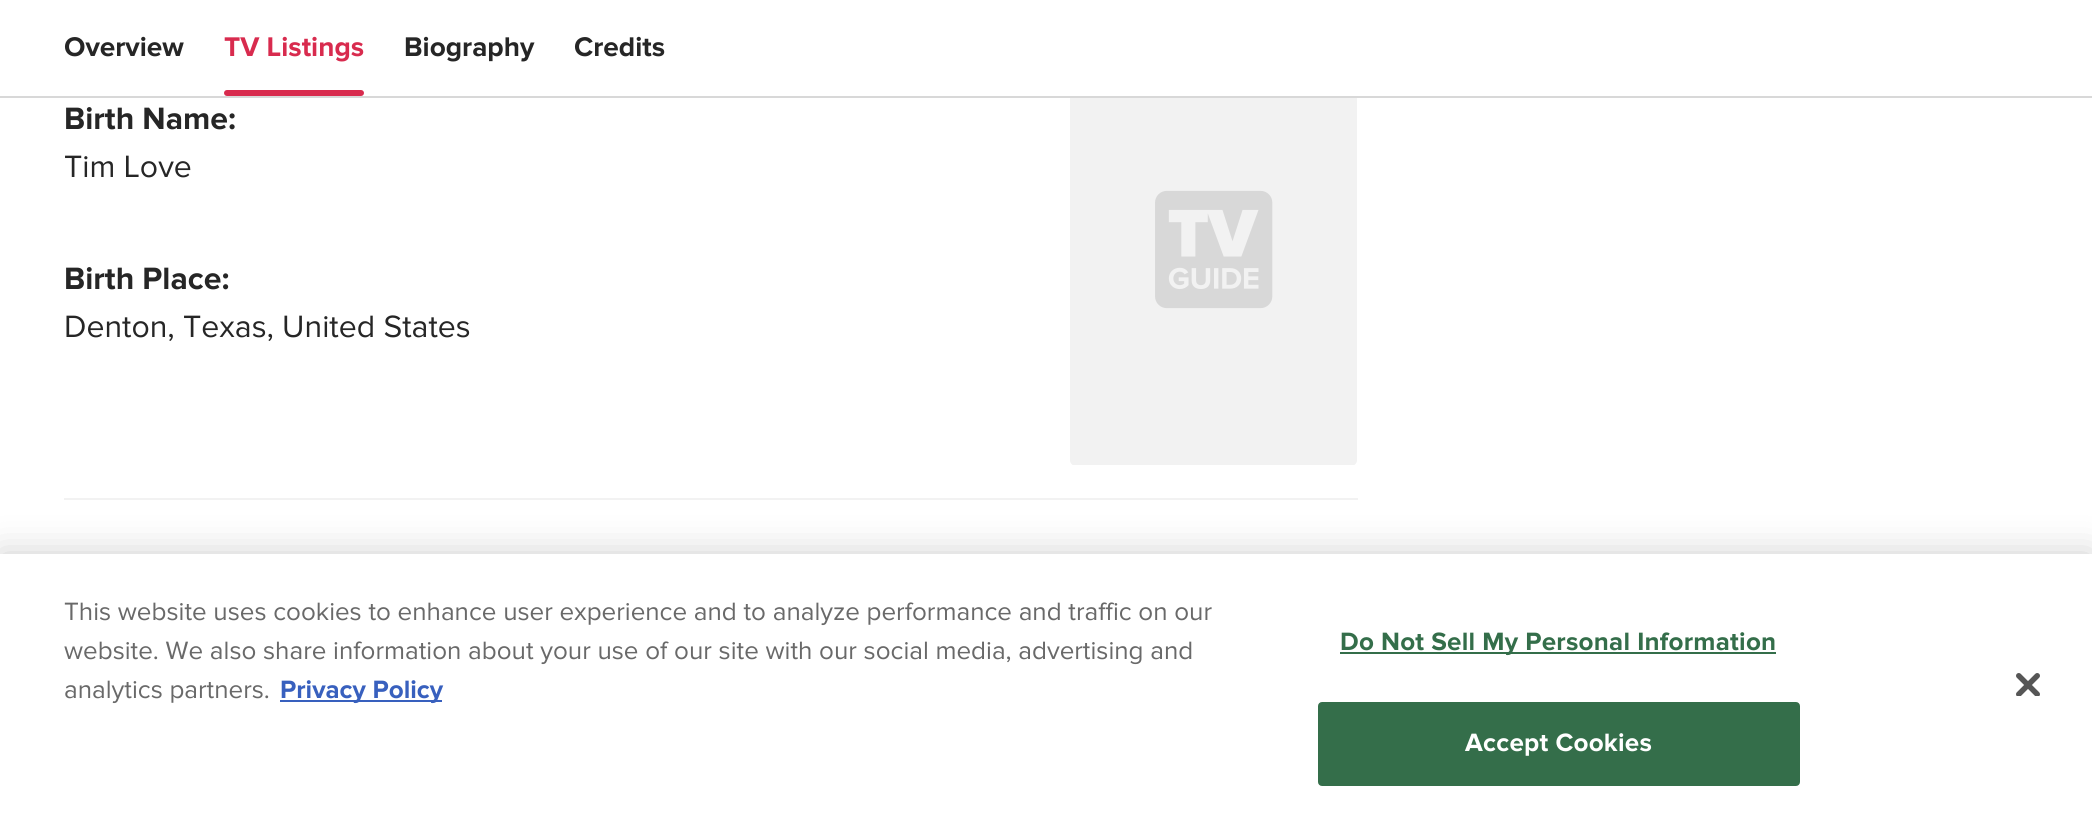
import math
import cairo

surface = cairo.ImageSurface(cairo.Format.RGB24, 2092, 826)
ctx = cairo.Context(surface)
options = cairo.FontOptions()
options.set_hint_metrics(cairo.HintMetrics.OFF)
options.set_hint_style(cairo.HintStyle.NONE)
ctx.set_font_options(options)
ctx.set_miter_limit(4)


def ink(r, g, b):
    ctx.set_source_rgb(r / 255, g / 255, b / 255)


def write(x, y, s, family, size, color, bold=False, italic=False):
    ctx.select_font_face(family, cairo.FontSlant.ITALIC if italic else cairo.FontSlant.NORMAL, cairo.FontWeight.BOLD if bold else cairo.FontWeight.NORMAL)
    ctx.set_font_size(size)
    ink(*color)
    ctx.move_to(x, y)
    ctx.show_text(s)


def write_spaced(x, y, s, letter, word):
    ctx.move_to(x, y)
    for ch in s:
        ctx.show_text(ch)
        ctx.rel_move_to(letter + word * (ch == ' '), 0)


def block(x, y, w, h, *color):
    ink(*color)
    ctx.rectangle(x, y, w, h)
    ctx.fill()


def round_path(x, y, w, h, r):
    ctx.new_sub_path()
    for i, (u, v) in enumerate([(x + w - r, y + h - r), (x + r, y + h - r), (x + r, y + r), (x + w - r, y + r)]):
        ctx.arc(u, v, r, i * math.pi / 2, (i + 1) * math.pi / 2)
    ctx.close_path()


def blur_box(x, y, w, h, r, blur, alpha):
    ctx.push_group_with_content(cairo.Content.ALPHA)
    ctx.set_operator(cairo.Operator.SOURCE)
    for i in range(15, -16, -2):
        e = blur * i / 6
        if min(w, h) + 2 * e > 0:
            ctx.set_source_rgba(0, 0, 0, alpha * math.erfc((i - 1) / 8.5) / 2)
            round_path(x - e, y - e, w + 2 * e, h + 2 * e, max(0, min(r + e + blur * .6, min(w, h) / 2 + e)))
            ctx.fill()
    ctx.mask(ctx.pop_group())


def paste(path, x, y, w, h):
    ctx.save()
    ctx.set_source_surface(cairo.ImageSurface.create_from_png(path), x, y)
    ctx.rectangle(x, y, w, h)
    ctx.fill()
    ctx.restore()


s1 = dict(family="Proxima Nova", size=28, color=(38, 38, 38), bold=True)
s2 = dict(family="Proxima Nova", size=28, color=(216, 43, 78), bold=True)
s3 = dict(family="Proxima Nova", size=32, color=(38, 38, 38), bold=True)
s4 = dict(family="Proxima Nova", size=32, color=(38, 38, 38))
s5 = dict(family="Proxima Nova", size=26, color=(105, 105, 105))
s6 = dict(family="Proxima Nova", size=26, color=(56, 96, 190), bold=True)

ink(255, 255, 255)
ctx.paint()
block(0, 96, 2092, 2, 216, 216, 216)
write(64, 56, "Overview", **s1)
write(224, 56, "TV Listings", **s2)
round_path(224, 90, 140, 6, 3)
ctx.fill()
write(404, 56, "Biography", **s1)
write(574, 56, "Credits", **s1)
block(64, 498, 1294, 2, 242, 242, 242)
write(64, 129, "Birth Name:", **s3)
write(64, 177, "Tim Love", **s4)
write(64, 289, "Birth Place:", **s3)
write(64, 337, "Denton, Texas, United States", **s4)
paste("pic1.png", 1070, 98, 287, 367)
ink(0, 0, 0)
blur_box(0, 554, 2092, 272, 0, 18, 0.2)
block(0, 554, 2092, 272, 255, 255, 255)
write(64, 620, "This website uses cookies to enhance user experience and to analyze performance and traffic on our", **s5)
write(64, 659, "website. We also share information about your use of our site with our social media, advertising and", **s5)
write(64, 698, "analytics partners.", **s5)
block(280, 700, 162, 2, 56, 96, 190)
write(280, 698, "Privacy Policy", **s6)
block(1340, 652, 436, 2, 52, 110, 74)
write_spaced(1340, 650, "Do Not Sell My Personal Information", 0.25, 0)
round_path(1319, 703, 480, 82, 3)
ctx.fill_preserve()
ctx.stroke()
ink(255, 255, 255)
write_spaced(1465, 751, "Accept Cookies", 0.25, 0)
paste("pic2.png", 2016, 673, 24, 23)
surface.write_to_png("screenshot.png")
